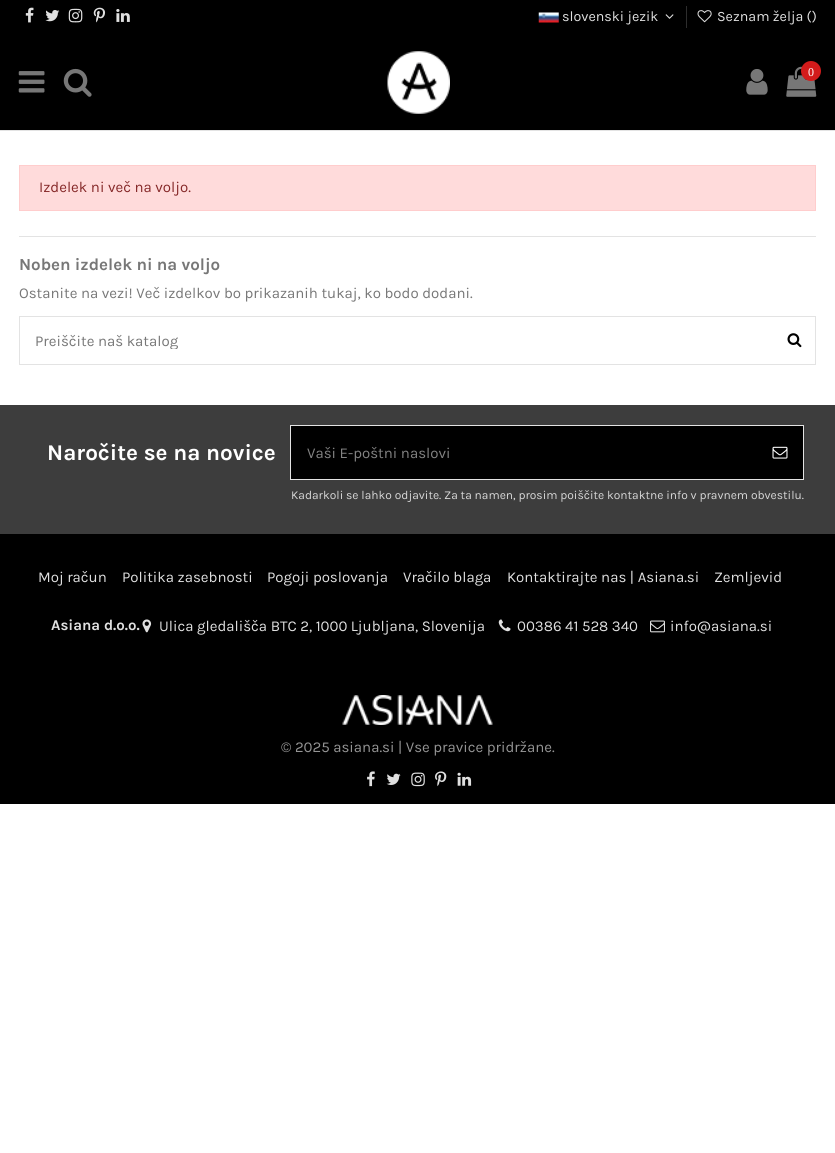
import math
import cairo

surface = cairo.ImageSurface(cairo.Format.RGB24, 835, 1153)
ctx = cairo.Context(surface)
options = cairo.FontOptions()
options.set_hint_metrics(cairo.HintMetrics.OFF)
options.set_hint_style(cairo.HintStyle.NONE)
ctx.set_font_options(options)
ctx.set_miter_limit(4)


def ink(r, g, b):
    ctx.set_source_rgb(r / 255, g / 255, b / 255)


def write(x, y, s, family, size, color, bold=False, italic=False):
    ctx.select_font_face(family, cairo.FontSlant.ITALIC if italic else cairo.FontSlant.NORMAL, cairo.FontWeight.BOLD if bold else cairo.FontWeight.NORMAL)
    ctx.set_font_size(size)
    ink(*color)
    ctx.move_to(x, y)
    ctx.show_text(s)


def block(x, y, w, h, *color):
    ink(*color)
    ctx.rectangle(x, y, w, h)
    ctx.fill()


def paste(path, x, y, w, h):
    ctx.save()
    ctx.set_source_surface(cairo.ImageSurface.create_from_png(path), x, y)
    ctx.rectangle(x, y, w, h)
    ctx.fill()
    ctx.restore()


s1 = dict(family="Karla", size=14.25, color=(224, 224, 224))
s2 = dict(family="Liberation Serif", size=12, color=(255, 255, 255))
s3 = dict(family="Karla", size=15, color=(133, 40, 40))
s4 = dict(family="Karla", size=16.9, color=(119, 119, 119), bold=True)
s5 = dict(family="Karla", size=15, color=(119, 119, 119))
s6 = dict(family="Karla", size=22.5, color=(255, 255, 255), bold=True)
s7 = dict(family="Karla", size=15, color=(131, 131, 131))
s8 = dict(family="Karla", size=12, color=(216, 216, 216))
s9 = dict(family="Karla", size=15, color=(224, 224, 224))
s10 = dict(family="Karla", size=15, color=(224, 224, 224), bold=True)
s11 = dict(family="Karla", size=15, color=(149, 149, 149))

ink(255, 255, 255)
ctx.paint()
block(0, 0, 835, 130, 0, 0, 0)
paste("pic1.png", 25, 7, 9, 16)
paste("pic2.png", 45, 10, 15, 12)
paste("pic3.png", 68, 8, 15, 15)
paste("pic4.png", 93, 7, 13, 16)
paste("pic5.png", 116, 9, 14, 13)
paste("pic6.png", 538, 12, 21, 11)
write(562, 21, "slovenski jezik", **s1)
paste("pic7.png", 665, 14, 9, 5)
block(686, 6, 1, 22, 45, 45, 45)
paste("pic8.png", 697, 10, 15, 13)
write(717, 21, "Seznam želja ()", **s1)
block(0, 130, 835, 1, 227, 227, 227)
paste("pic9.png", 18, 71, 27, 22)
paste("pic10.png", 63, 68, 29, 29)
paste("pic11.png", 387, 51, 63, 63)
paste("pic12.png", 746, 69, 22, 26)
paste("pic13.png", 786, 66, 31, 31)
ink(211, 27, 27)
ctx.arc(811, 71, 10, 0, 2 * math.pi)
ctx.fill()
write(808, 76, "0", **s2)
ink(255, 219, 219)
ctx.rectangle(19.5, 165.5, 796, 45)
ctx.fill_preserve()
ink(255, 205, 205)
ctx.set_line_width(1)
ctx.stroke()
write(39, 192, "Izdelek ni več na voljo.", **s3)
block(19, 236, 797, 1, 227, 227, 227)
write(19, 270, "Noben izdelek ni na voljo", **s4)
write(19, 298, "Ostanite na vezi! Več izdelkov bo prikazanih tukaj, ko bodo dodani.", **s5)
ctx.rectangle(19.5, 316.5, 796, 48)
ink(227, 227, 227)
ctx.stroke()
ctx.save()
ctx.rectangle(35, 331, 750, 18)
ctx.clip()
write(35, 346, "Preiščite naš katalog", **s5)
ctx.restore()
paste("pic14.png", 787, 333, 15, 15)
block(0, 534, 835, 270, 0, 0, 0)
block(0, 405, 835, 129, 61, 61, 61)
write(47, 460, "Naročite se na novice", **s6)
ink(0, 0, 0)
ctx.rectangle(290.5, 425.5, 513, 54)
ctx.fill_preserve()
ink(227, 227, 227)
ctx.stroke()
write(307, 458, "Vaši E-poštni naslovi", **s7)
paste("pic15.png", 772, 446, 16, 13)
write(291, 499, "Kadarkoli se lahko odjavite. Za ta namen, prosim poiščite kontaktne info v pravnem obvestilu.", **s8)
write(38, 582, "Moj račun", **s9)
write(122, 582, "Politika zasebnosti", **s9)
write(267, 582, "Pogoji poslovanja", **s9)
write(403, 582, "Vračilo blaga", **s9)
write(507, 582, "Kontaktirajte nas | Asiana.si", **s9)
write(714, 582, "Zemljevid", **s9)
write(51, 630, "Asiana d.o.o.", **s10)
paste("pic16.png", 142, 619, 10, 14)
write(159, 631, "Ulica gledališča BTC 2, 1000 Ljubljana, Slovenija", **s9)
paste("pic17.png", 498, 619, 13, 13)
write(517, 631, "00386 41 528 340", **s9)
paste("pic18.png", 650, 620, 15, 13)
write(670, 631, "info@asiana.si", **s9)
paste("pic19.png", 342, 695, 151, 30)
write(281, 752, "© 2025 asiana.si | Vse pravice pridržane.", **s11)
paste("pic20.png", 367, 771, 8, 16)
paste("pic21.png", 386, 773, 15, 12)
paste("pic22.png", 411, 772, 14, 15)
paste("pic23.png", 435, 771, 12, 16)
paste("pic24.png", 457, 772, 15, 14)
surface.write_to_png("screenshot.png")
